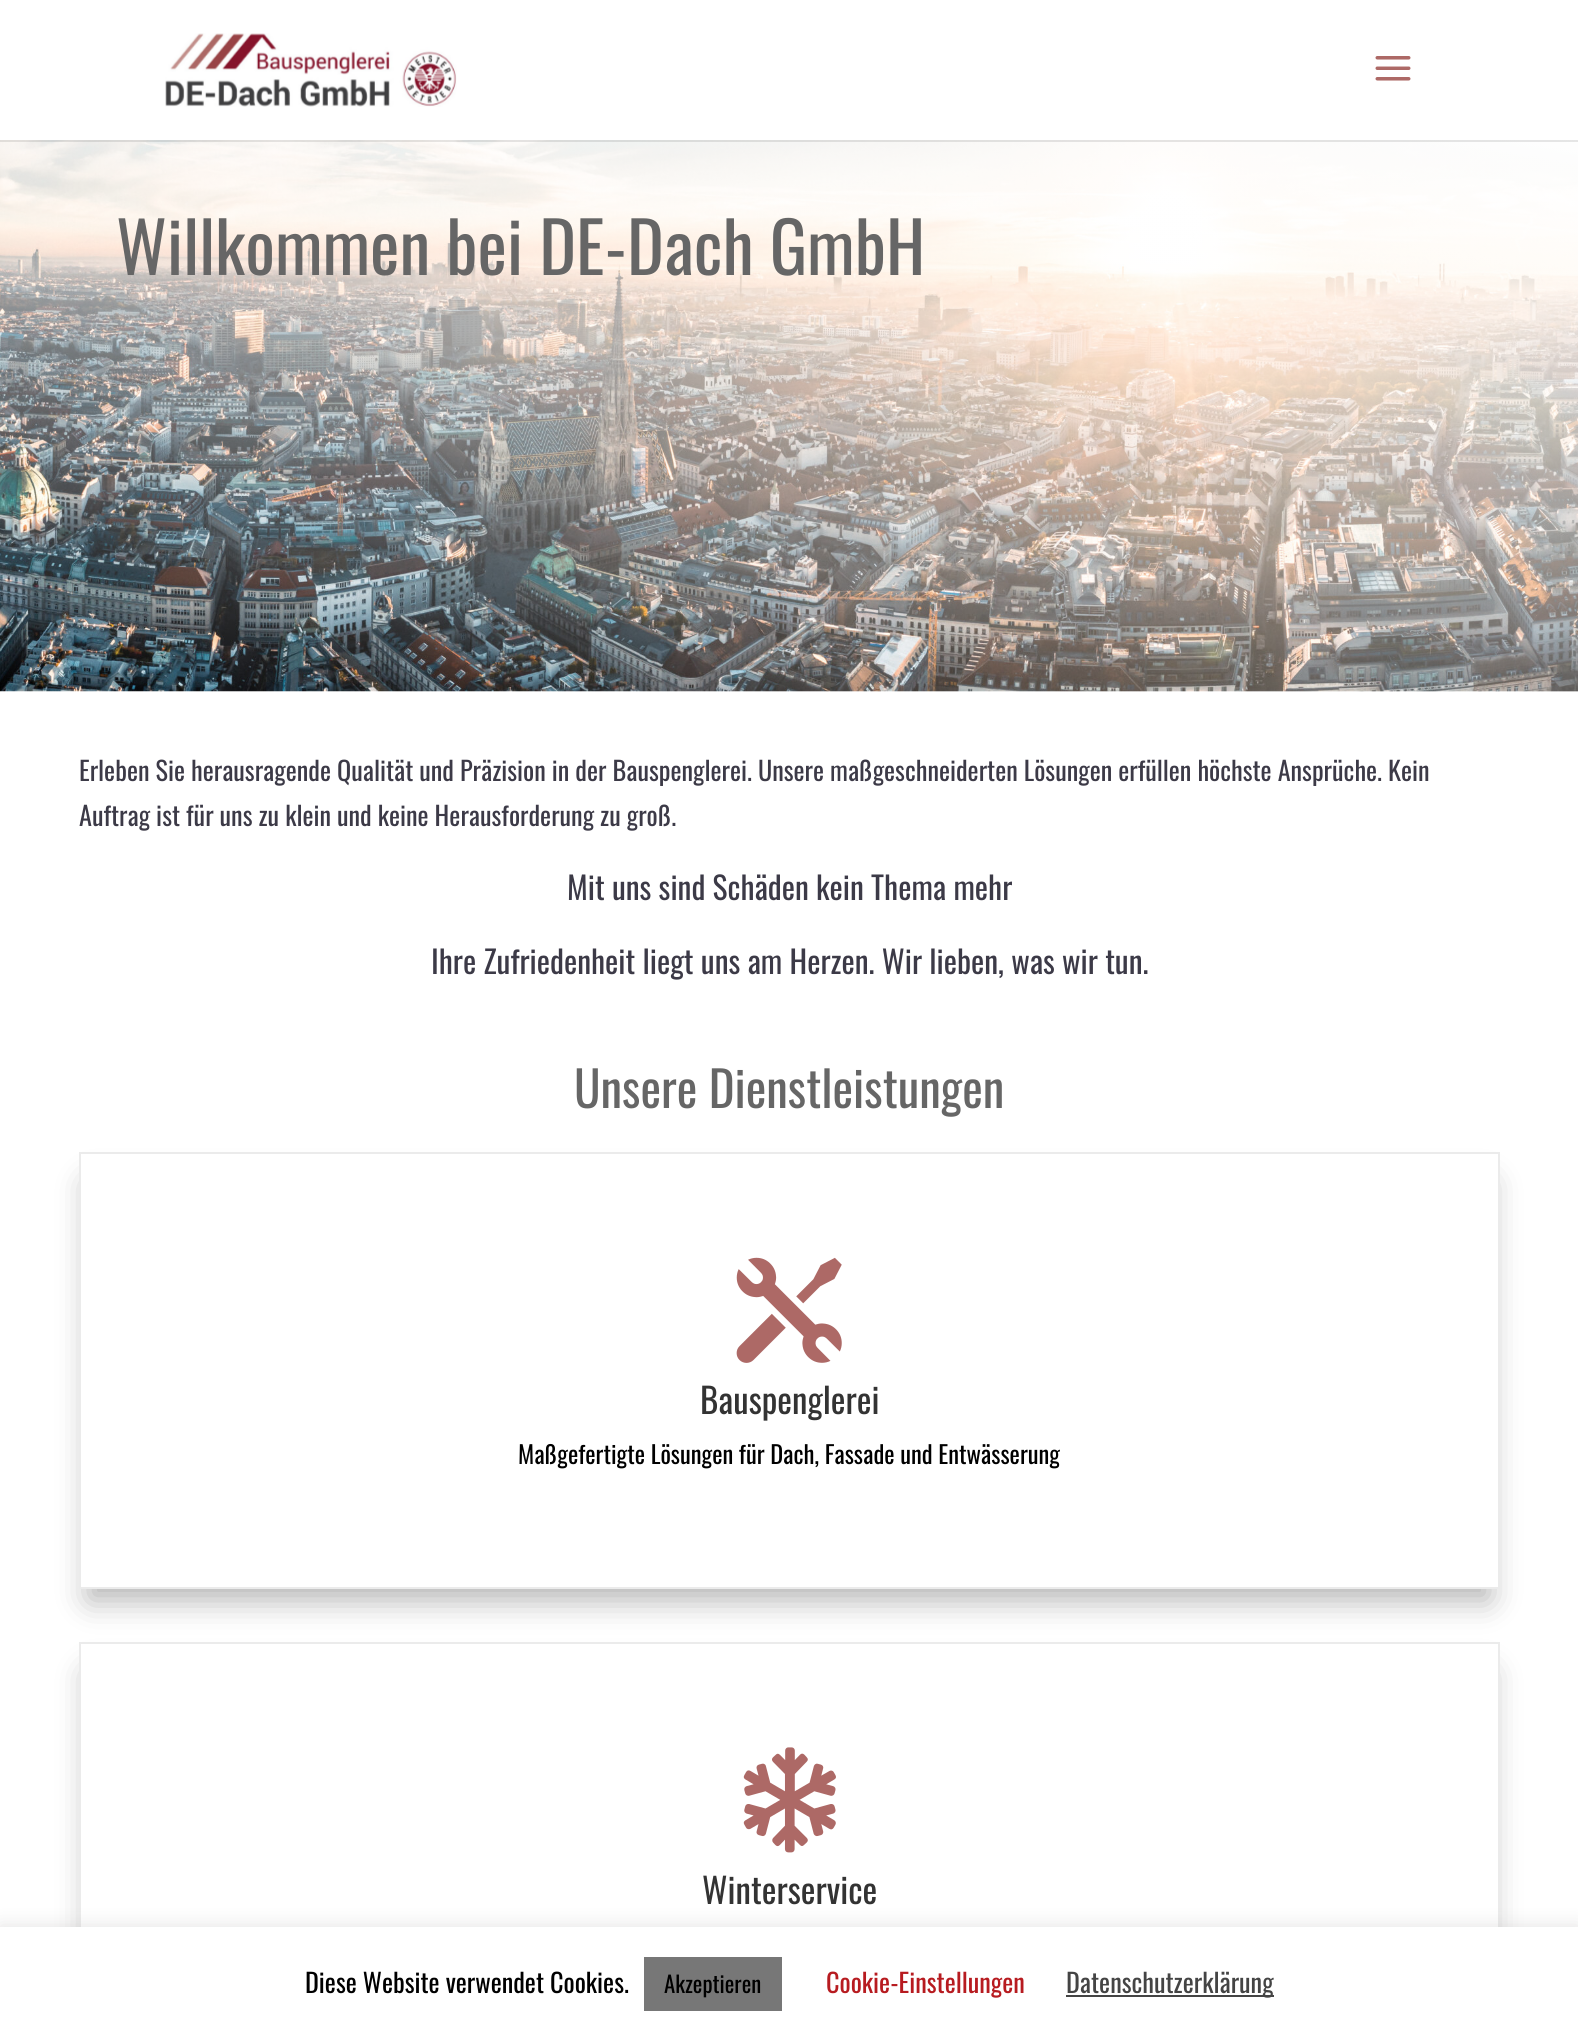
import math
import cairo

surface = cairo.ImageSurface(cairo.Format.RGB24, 1578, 2039)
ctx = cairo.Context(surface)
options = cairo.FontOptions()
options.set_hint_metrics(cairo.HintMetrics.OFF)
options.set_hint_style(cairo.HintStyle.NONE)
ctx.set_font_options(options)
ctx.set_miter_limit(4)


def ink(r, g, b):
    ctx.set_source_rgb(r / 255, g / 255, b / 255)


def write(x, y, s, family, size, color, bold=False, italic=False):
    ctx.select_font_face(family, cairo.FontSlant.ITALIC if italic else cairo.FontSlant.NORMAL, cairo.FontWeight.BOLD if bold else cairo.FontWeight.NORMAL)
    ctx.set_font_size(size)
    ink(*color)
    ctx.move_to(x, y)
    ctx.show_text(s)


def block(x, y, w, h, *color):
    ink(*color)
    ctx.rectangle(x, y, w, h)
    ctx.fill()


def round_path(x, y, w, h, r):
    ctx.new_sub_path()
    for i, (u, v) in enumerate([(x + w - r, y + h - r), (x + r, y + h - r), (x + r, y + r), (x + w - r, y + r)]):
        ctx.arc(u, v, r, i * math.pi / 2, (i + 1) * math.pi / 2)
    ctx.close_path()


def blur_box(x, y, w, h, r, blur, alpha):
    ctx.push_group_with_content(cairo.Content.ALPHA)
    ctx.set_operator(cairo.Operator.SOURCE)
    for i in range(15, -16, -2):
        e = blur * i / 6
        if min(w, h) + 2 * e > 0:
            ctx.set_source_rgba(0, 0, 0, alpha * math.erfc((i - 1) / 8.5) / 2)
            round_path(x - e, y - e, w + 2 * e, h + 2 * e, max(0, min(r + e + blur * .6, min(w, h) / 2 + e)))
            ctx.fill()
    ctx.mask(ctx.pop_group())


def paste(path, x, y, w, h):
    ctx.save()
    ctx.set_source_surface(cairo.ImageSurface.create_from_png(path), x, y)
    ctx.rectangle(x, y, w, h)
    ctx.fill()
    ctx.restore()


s1 = dict(family="Oswald", size=70, color=(102, 102, 102))
s2 = dict(family="Oswald", size=26.25, color=(60, 58, 71))
s3 = dict(family="Oswald", size=31.5, color=(60, 58, 71))
s4 = dict(family="Oswald", size=49, color=(102, 102, 102))
s5 = dict(family="Oswald", size=35, color=(51, 51, 51))
s6 = dict(family="Oswald", size=24.5, color=(0, 0, 0))
s7 = dict(family="Oswald", size=26.25, color=(0, 0, 0))
s8 = dict(family="Oswald", size=22.75, color=(0, 0, 0))
s9 = dict(family="Oswald", size=26.25, color=(183, 27, 32))
s10 = dict(family="Oswald", size=26.25, color=(68, 68, 68))

ink(255, 255, 255)
ctx.paint()
paste("pic3.png", 0, 140, 1578, 552)
ctx.set_source_rgba(0, 0, 0, 0.1)
ctx.new_path()
ctx.move_to(0, 140)
ctx.line_to(0, 142)
ctx.line_to(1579, 142)
ctx.line_to(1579, 2)
ctx.line_to(1578, 2)
ctx.line_to(1578, 140)
ctx.close_path()
ctx.fill()
paste("pic1.png", 165, 33, 292, 74)
paste("pic2.png", 1375, 56, 36, 25)
write(116, 275, "Willkommen bei DE-Dach GmbH", **s1)
write(79, 781, "Erleben Sie herausragende Qualität und Präzision in der Bauspenglerei. Unsere maßgeschneiderten Lösungen erfüllen höchste Ansprüche. Kein", **s2)
write(79, 826, "Auftrag ist für uns zu klein und keine Herausforderung zu groß.", **s2)
write(567, 900, "Mit uns sind Schäden kein Thema mehr", **s3)
write(431, 974, "Ihre Zufriedenheit liegt uns am Herzen. Wir lieben, was wir tun.", **s3)
write(574, 1108, "Unsere Dienstleistungen", **s4)
ctx.save()
ctx.set_fill_rule(cairo.FillRule.EVEN_ODD)
ctx.new_path()
ctx.move_to(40, 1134)
ctx.line_to(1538, 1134)
ctx.line_to(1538, 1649)
ctx.line_to(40, 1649)
ctx.close_path()
ctx.move_to(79, 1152)
ctx.line_to(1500, 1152)
ctx.line_to(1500, 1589)
ctx.line_to(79, 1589)
ctx.close_path()
ctx.clip()
ink(0, 0, 0)
blur_box(89, 1183, 1400, 417, 0, 16, 0.3)
ctx.restore()
ctx.rectangle(80, 1153, 1419, 435)
ink(235, 235, 235)
ctx.stroke()
paste("pic4.png", 736, 1257, 106, 106)
write(700, 1414, "Bauspenglerei", **s5)
write(518, 1464, "Maßgefertigte Lösungen für Dach, Fassade und Entwässerung", **s6)
ctx.save()
ctx.set_fill_rule(cairo.FillRule.EVEN_ODD)
ctx.new_path()
ctx.move_to(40, 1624)
ctx.line_to(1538, 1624)
ctx.line_to(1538, 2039)
ctx.line_to(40, 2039)
ctx.close_path()
ctx.move_to(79, 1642)
ctx.line_to(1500, 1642)
ctx.line_to(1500, 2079)
ctx.line_to(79, 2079)
ctx.close_path()
ctx.clip()
ink(0, 0, 0)
blur_box(89, 1673, 1400, 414, 0, 16, 0.3)
ctx.restore()
ctx.rectangle(80, 1643, 1419, 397)
ink(235, 235, 235)
ctx.stroke()
paste("pic5.png", 743, 1747, 93, 106)
write(702, 1904, "Winterservice", **s5)
ink(172, 171, 171)
blur_box(0, 1925, 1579, 114, 0, 9, 0.3)
block(0, 1927, 1578, 112, 255, 255, 255)
write(305, 1993, "Diese Website verwendet Cookies.", **s7)
block(644, 1957, 138, 54, 119, 119, 119)
write(664, 1993, "Akzeptieren", **s8)
write(826, 1993, "Cookie-Einstellungen", **s9)
block(1066, 1995, 208, 2, 68, 68, 68)
write(1066, 1993, "Datenschutzerklärung", **s10)
surface.write_to_png("screenshot.png")
